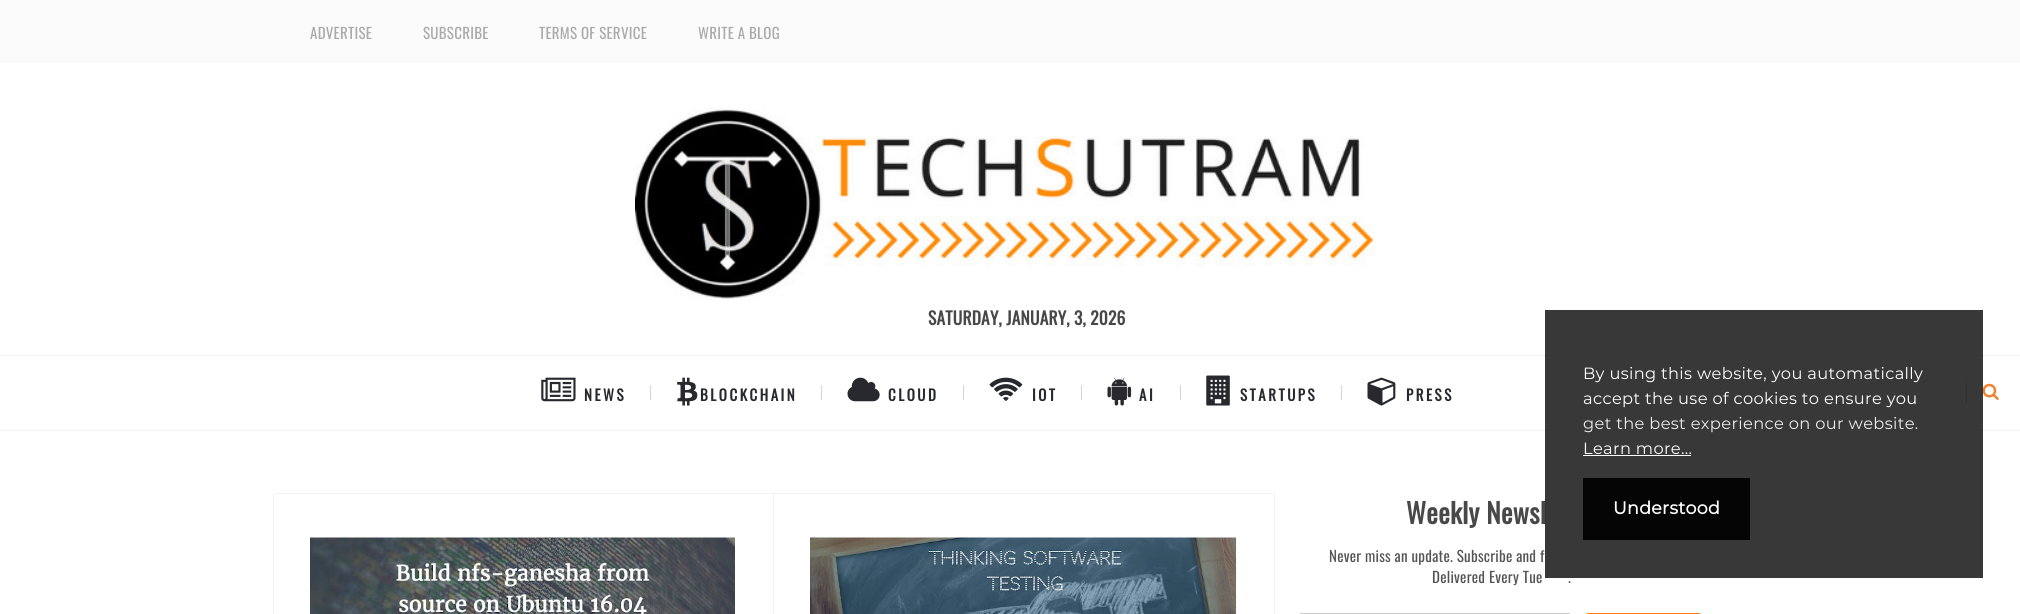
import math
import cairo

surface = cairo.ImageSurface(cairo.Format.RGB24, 2020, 614)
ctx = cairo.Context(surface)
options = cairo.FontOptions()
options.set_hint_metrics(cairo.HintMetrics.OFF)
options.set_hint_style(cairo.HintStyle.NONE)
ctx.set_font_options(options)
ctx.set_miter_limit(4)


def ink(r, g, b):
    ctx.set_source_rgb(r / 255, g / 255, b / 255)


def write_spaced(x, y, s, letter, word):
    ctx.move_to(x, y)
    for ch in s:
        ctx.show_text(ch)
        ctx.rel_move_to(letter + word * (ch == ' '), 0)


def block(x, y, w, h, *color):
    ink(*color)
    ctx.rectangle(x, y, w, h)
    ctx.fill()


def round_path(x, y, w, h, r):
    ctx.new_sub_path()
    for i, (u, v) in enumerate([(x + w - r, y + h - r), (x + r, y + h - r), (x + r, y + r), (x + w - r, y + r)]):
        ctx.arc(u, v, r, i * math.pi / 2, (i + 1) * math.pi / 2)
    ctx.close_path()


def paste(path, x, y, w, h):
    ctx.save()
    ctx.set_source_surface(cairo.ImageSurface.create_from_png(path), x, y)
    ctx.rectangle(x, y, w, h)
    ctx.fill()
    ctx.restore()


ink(255, 255, 255)
ctx.paint()
block(0, 0, 2020, 63, 251, 251, 251)
block(0, 61, 2020, 1, 247, 247, 247)
ctx.select_font_face("Oswald")
ctx.set_font_size(15)
ink(170, 170, 170)
write_spaced(310, 39, "ADVERTISE", 0.25, 0)
write_spaced(423, 39, "SUBSCRIBE", 0.25, 0)
write_spaced(539, 39, "TERMS OF SERVICE", 0.25, 0)
write_spaced(698, 39, "WRITE A BLOG", 0.25, 0)
paste("pic1.png", 635, 108, 740, 193)
ctx.select_font_face("Oswald", cairo.FontSlant.NORMAL, cairo.FontWeight.BOLD)
ctx.set_font_size(17.5)
ink(72, 72, 72)
write_spaced(928, 325, "SATURDAY, JANUARY, 3, 2026", 0.2, 0)
block(0, 355, 2020, 1, 242, 242, 242)
block(0, 430, 2020, 1, 242, 242, 242)
paste("pic2.png", 541, 377, 35, 25)
ctx.set_font_size(15)
ink(40, 41, 46)
write_spaced(584, 401, "NEWS", 2.5, 0)
block(650, 385, 1, 15, 212, 212, 213)
paste("pic3.png", 677, 377, 21, 29)
ink(40, 41, 46)
write_spaced(700, 401, "BLOCKCHAIN", 2.5, 0)
block(821, 385, 1, 15, 212, 212, 213)
paste("pic4.png", 847, 377, 33, 25)
ink(40, 41, 46)
write_spaced(888, 401, "CLOUD", 2.5, 0)
block(963, 385, 1, 15, 212, 212, 213)
paste("pic5.png", 989, 377, 34, 24)
ink(40, 41, 46)
write_spaced(1032, 401, "IOT", 2.5, 0)
block(1081, 385, 1, 15, 212, 212, 213)
paste("pic6.png", 1107, 377, 25, 29)
ink(40, 41, 46)
write_spaced(1139, 401, "AI", 2.5, 0)
block(1180, 385, 1, 15, 212, 212, 213)
paste("pic7.png", 1206, 375, 24, 31)
ink(40, 41, 46)
write_spaced(1240, 401, "STARTUPS", 2.5, 0)
block(1341, 385, 1, 15, 212, 212, 213)
paste("pic8.png", 1367, 377, 29, 29)
ink(40, 41, 46)
write_spaced(1406, 401, "PRESS", 2.5, 0)
block(1966, 383, 1, 20, 153, 153, 153)
paste("pic9.png", 1982, 383, 17, 17)
ink(242, 242, 242)
ctx.new_path()
ctx.move_to(274, 493)
ctx.line_to(274, 494)
ctx.line_to(772, 494)
ctx.line_to(772, 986)
ctx.line_to(774, 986)
ctx.line_to(774, 493)
ctx.close_path()
ctx.fill()
block(772, 494, 1, 120, 255, 255, 255)
ctx.save()
ctx.rectangle(273, 494, 500, 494)
ctx.clip()
ink(242, 242, 242)
ctx.set_fill_rule(cairo.FillRule.EVEN_ODD)
ctx.new_path()
ctx.move_to(149, 370)
ctx.line_to(896, 370)
ctx.line_to(896, 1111)
ctx.line_to(149, 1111)
ctx.close_path()
ctx.move_to(274, 492)
ctx.line_to(774, 492)
ctx.line_to(774, 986)
ctx.line_to(274, 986)
ctx.close_path()
ctx.fill()
ctx.restore()
paste("pic10.png", 310, 537, 425, 77)
ink(242, 242, 242)
ctx.new_path()
ctx.move_to(774, 493)
ctx.line_to(774, 494)
ctx.line_to(1274, 494)
ctx.line_to(1274, 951)
ctx.line_to(1275, 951)
ctx.line_to(1275, 493)
ctx.close_path()
ctx.fill()
paste("pic11.png", 810, 537, 427, 77)
ctx.set_font_size(27.5)
ink(72, 72, 72)
write_spaced(1406, 524, "Weekly Newsl", 0.25, 0)
ctx.select_font_face("Oswald")
ctx.set_font_size(15)
ink(85, 85, 85)
write_spaced(1329, 562, "Never miss an update. Subscribe and f", 0.25, 0)
write_spaced(1432, 583, "Delivered Every Tue", 0.25, 0)
write_spaced(1568, 583, ".", 0.25, 0)
ctx.rectangle(1300.5, 613.5, 269, 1)
ink(204, 204, 204)
ctx.set_line_width(1)
ctx.stroke()
ink(253, 126, 20)
round_path(1583, 613, 121, 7, 6)
ctx.fill()
ctx.set_source_rgba(0.137, 0.137, 0.137, 0.9)
ctx.rectangle(1545, 310, 438, 268)
ctx.fill()
ctx.select_font_face("Montserrat Thin")
ctx.set_font_size(16.25)
ink(255, 255, 255)
write_spaced(1583, 379, "By using this website, you automatically", 0.35, 0)
write_spaced(1583, 404, "accept the use of cookies to ensure you", 0.35, 0)
ink(235, 235, 235)
write_spaced(1583, 429, "get the best experience on our website.", 0.35, 0)
ink(255, 255, 255)
write_spaced(1583, 454, "Learn more...", 0.35, 0)
block(1583, 455, 108, 1, 255, 255, 255)
ctx.set_source_rgba(0, 0, 0, 0.9)
ctx.rectangle(1583, 478, 167, 62)
ctx.fill()
ctx.select_font_face("Montserrat", cairo.FontSlant.NORMAL, cairo.FontWeight.BOLD)
ctx.set_font_size(17.5)
ink(255, 255, 255)
write_spaced(1613, 514, "Understood", 0.25, 0)
surface.write_to_png("screenshot.png")
